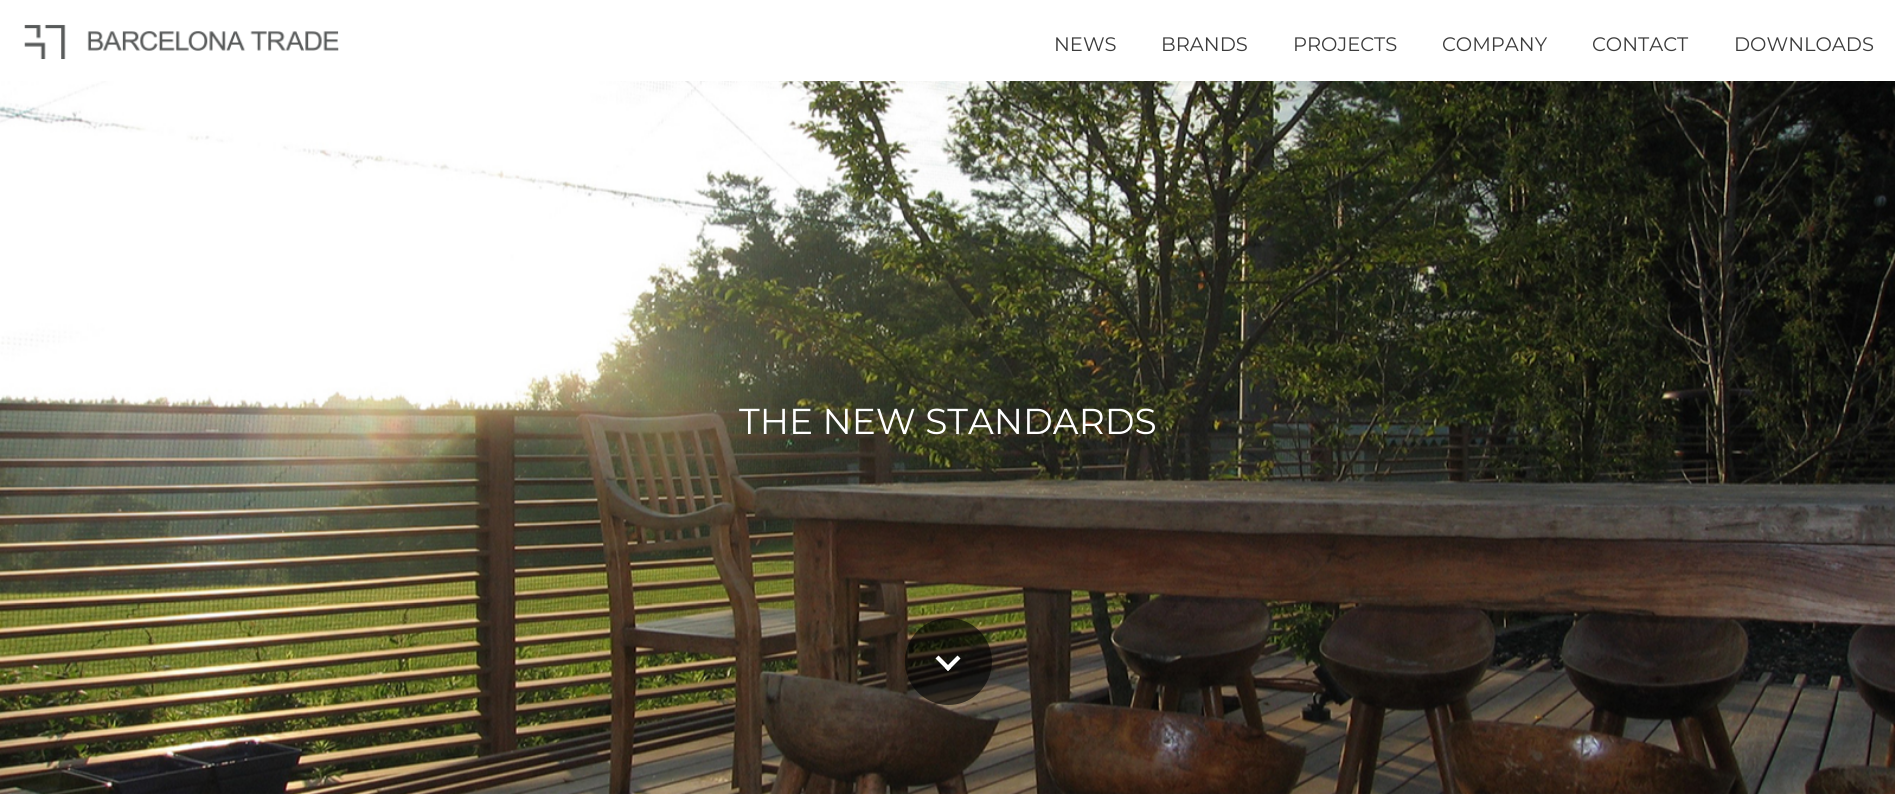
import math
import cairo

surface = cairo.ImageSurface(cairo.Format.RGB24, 1895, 794)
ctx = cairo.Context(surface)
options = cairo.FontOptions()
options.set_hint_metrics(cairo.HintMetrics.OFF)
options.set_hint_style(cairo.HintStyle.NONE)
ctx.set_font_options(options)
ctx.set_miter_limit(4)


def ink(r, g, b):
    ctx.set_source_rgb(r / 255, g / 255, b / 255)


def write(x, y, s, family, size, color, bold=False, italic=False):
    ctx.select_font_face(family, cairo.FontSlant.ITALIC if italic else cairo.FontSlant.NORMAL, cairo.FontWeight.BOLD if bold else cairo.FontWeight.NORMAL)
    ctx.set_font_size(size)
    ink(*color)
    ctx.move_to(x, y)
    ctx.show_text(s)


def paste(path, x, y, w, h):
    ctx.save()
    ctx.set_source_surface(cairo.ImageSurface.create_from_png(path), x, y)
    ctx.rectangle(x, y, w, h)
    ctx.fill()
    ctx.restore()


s1 = dict(family="Montserrat", size=19.5, color=(60, 60, 60))
s2 = dict(family="Montserrat", size=36, color=(255, 255, 255))

ink(255, 255, 255)
ctx.paint()
paste("pic1.png", 0, 81, 1895, 713)
paste("pic2.png", 24, 24, 315, 36)
write(1054, 51, "NEWS", **s1)
write(1161, 51, "BRANDS", **s1)
write(1293, 51, "PROJECTS", **s1)
write(1442, 51, "COMPANY", **s1)
write(1592, 51, "CONTACT", **s1)
write(1734, 51, "DOWNLOADS", **s1)
write(739, 434, "THE NEW STANDARDS", **s2)
ctx.set_source_rgba(0, 0, 0, 0.6)
ctx.new_path()
ctx.arc(948.5, 661.5, 43.5, 0, 2 * math.pi)
ctx.fill()
ink(255, 255, 255)
ctx.new_path()
ctx.move_to(960.5, 658.5)
ctx.line_to(948, 671)
ctx.line_to(945, 668)
ctx.line_to(957.5, 655.5)
ctx.close_path()
ctx.fill()
ctx.new_path()
ctx.move_to(951, 668)
ctx.line_to(948, 671)
ctx.line_to(935.5, 658.5)
ctx.line_to(938.5, 655.5)
ctx.close_path()
ctx.fill()
surface.write_to_png("screenshot.png")
